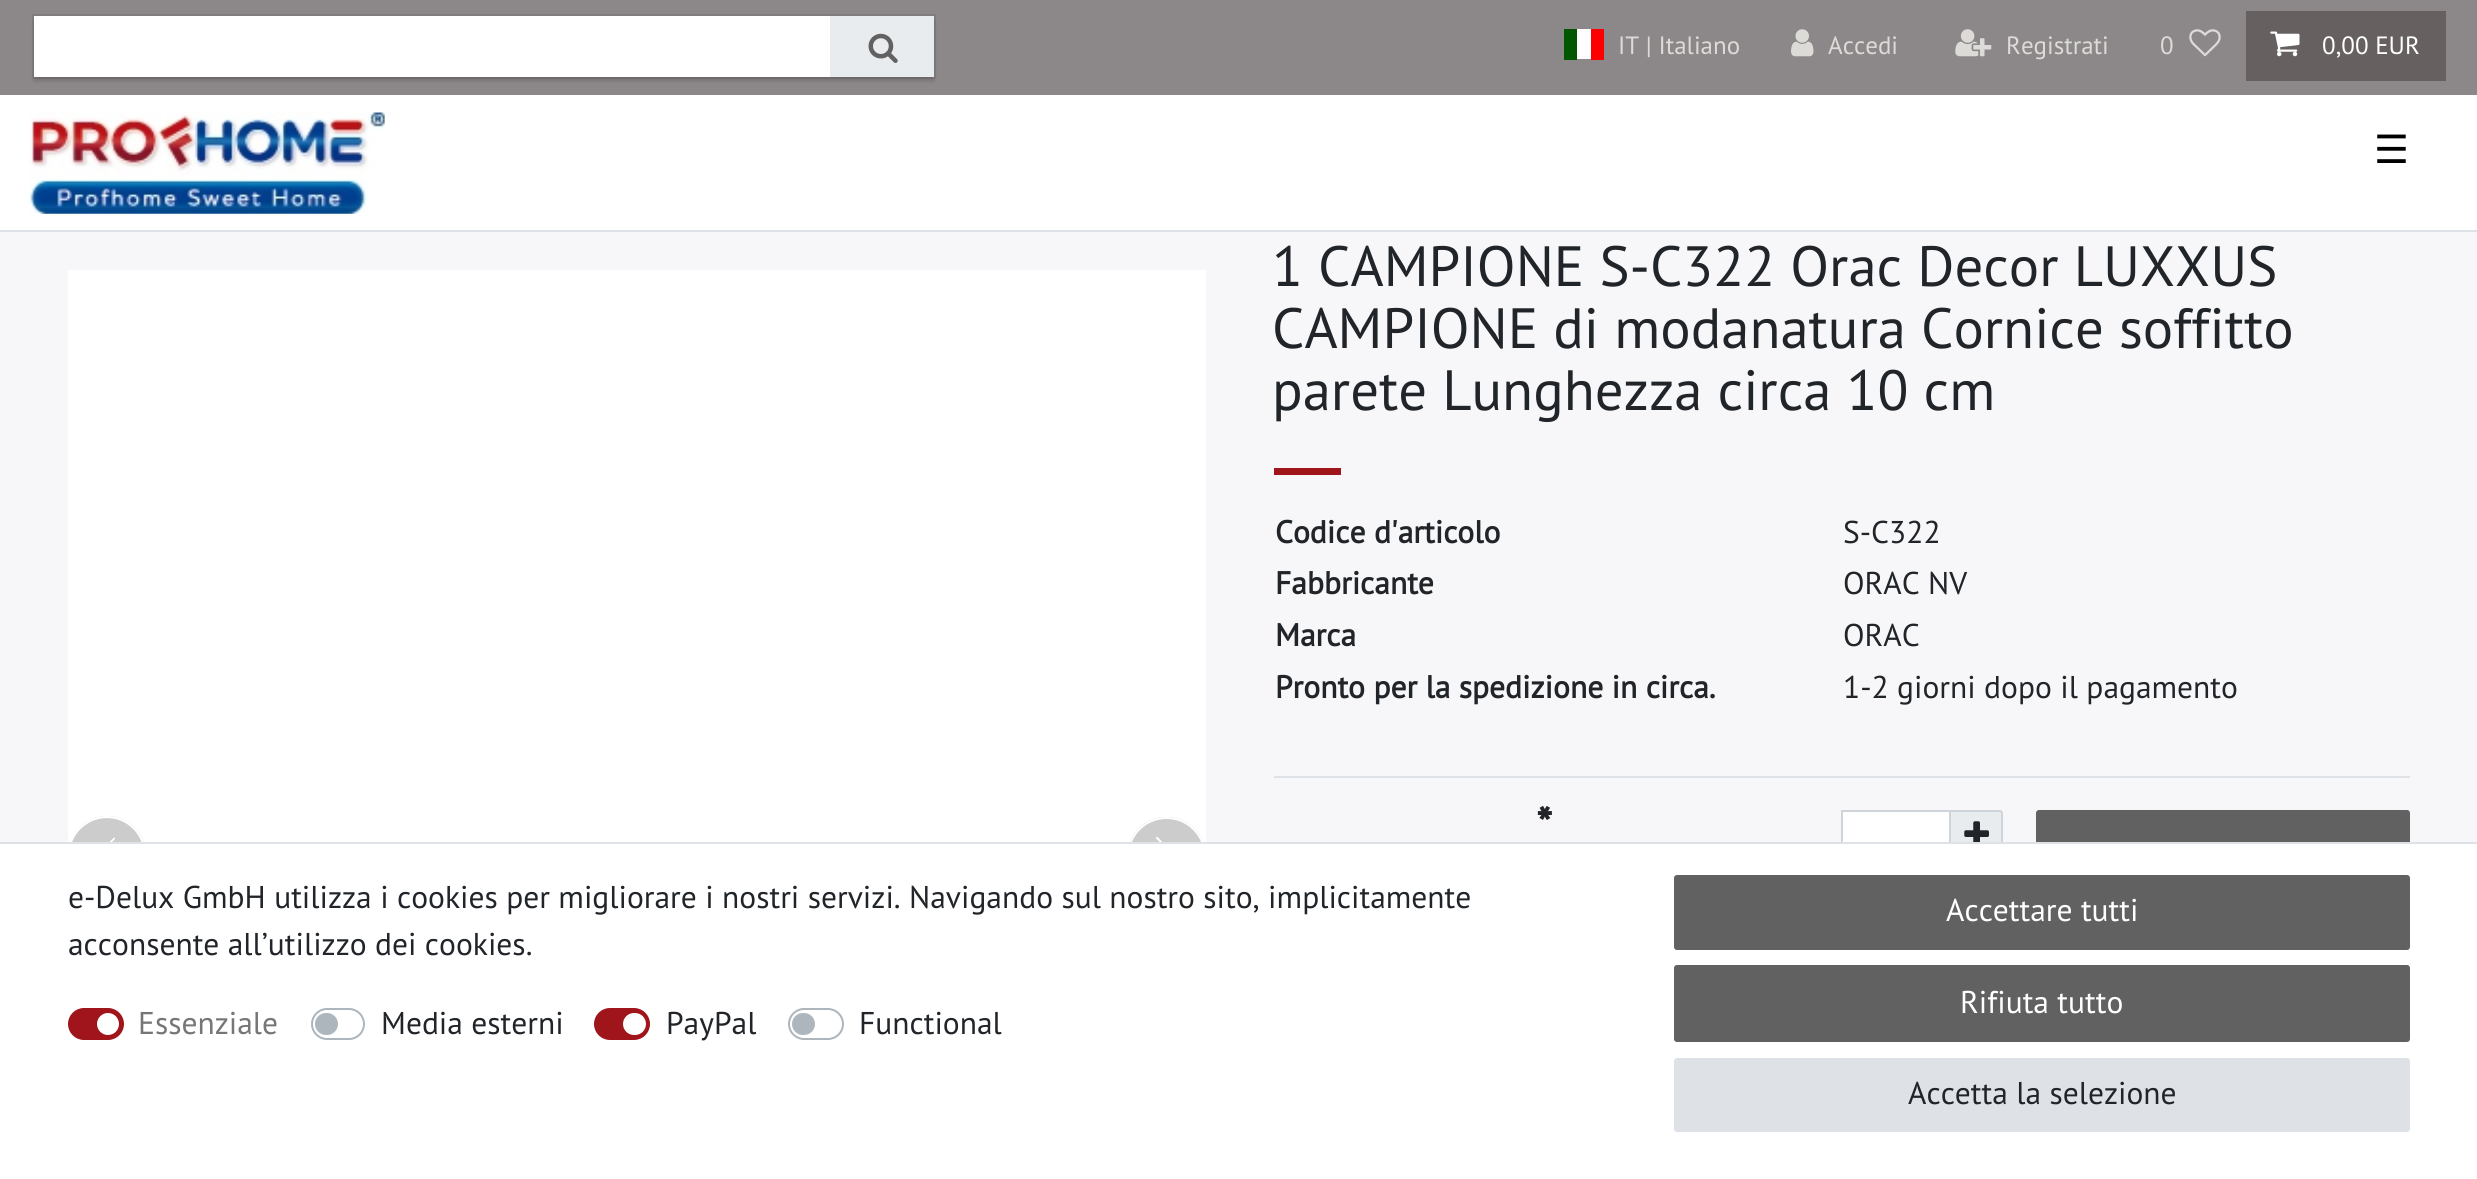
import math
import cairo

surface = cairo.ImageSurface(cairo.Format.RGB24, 2477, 1179)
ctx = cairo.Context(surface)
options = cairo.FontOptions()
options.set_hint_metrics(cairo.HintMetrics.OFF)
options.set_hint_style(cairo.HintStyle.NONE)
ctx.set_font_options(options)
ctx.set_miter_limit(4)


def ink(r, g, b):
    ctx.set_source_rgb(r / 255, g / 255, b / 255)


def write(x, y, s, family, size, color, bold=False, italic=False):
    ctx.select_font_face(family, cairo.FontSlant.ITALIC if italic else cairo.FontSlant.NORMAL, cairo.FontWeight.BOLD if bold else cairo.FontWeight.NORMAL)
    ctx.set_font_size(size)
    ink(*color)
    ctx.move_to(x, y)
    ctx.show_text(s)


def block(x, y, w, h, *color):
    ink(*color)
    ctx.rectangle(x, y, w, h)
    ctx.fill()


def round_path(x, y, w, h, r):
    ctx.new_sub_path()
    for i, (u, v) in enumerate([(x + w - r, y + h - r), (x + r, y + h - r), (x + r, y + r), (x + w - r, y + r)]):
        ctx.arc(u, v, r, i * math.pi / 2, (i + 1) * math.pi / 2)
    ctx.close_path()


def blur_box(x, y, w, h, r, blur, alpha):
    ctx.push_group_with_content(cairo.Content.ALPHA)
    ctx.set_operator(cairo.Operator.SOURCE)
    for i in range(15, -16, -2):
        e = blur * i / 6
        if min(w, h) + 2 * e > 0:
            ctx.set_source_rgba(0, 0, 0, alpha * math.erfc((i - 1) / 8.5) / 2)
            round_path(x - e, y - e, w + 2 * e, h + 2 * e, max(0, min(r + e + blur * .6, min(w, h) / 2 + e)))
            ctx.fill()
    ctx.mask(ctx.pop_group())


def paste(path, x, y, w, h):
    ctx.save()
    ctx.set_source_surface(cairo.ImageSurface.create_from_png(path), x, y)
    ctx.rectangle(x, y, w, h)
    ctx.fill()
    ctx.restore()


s1 = dict(family="PT Sans", size=25, color=(220, 219, 216))
s2 = dict(family="PT Sans", size=25, color=(255, 255, 255))
s3 = dict(family="DejaVu Sans", size=39, color=(0, 0, 0))
s4 = dict(family="PT Sans", size=56.75, color=(33, 37, 41))
s5 = dict(family="PT Sans", size=31.5, color=(33, 37, 41), bold=True)
s6 = dict(family="PT Sans", size=31.5, color=(33, 37, 41))
s7 = dict(family="PT Sans", size=47, color=(33, 37, 41), bold=True)
s8 = dict(family="PT Sans", size=31.5, color=(118, 118, 118))
s9 = dict(family="PT Sans", size=31.5, color=(255, 255, 255))

ink(247, 247, 249)
ctx.paint()
block(0, 95, 2477, 135, 255, 255, 255)
block(0, 0, 2477, 95, 140, 136, 137)
ctx.rectangle(33, 15, 902, 63)
ink(129, 125, 126)
ctx.stroke()
ink(0, 0, 0)
blur_box(34, 20, 900, 61, 0, 2, 0.16)
block(34, 16, 796, 61, 255, 255, 255)
block(830, 16, 104, 61, 233, 236, 239)
paste("pic1.png", 868, 33, 30, 30)
block(1577, 29, 14, 30, 255, 255, 255)
block(1564, 29, 13, 31, 0, 87, 0)
block(1591, 29, 13, 31, 252, 0, 0)
write(1618, 54, "IT | Italiano", **s1)
paste("pic2.png", 1791, 29, 23, 28)
write(1828, 54, "Accedi", **s1)
paste("pic3.png", 1955, 29, 37, 28)
write(2006, 54, "Registrati", **s1)
write(2160, 54, "0", **s1)
paste("pic4.png", 2189, 29, 32, 28)
block(2246, 11, 200, 70, 102, 96, 96)
paste("pic5.png", 2270, 31, 30, 26)
write(2322, 54, "0,00 EUR", **s2)
block(0, 230, 2477, 2, 222, 226, 230)
paste("pic6.png", 29, 112, 356, 102)
write(2374, 163, "☰", **s3)
block(68, 270, 1138, 572, 255, 255, 255)
ink(204, 204, 204)
ctx.new_path()
ctx.move_to(107, 895)
ctx.curve_to(85, 895, 68, 877, 68, 855)
ctx.curve_to(68, 834, 85, 816, 107, 816)
ctx.curve_to(129, 816, 146, 834, 146, 855)
ctx.curve_to(146, 877, 129, 895, 107, 895)
ctx.close_path()
ctx.fill()
ink(254, 255, 248)
ctx.new_path()
ctx.move_to(96.5, 856.5)
ctx.line_to(113.5, 873.5)
ctx.line_to(114.5, 873.5)
ctx.curve_to(116.5, 872.5, 114, 871, 112, 869)
ctx.line_to(98.5, 855.5)
ctx.line_to(115, 839)
ctx.curve_to(115.5, 838, 114.5, 837.5, 114, 837.5)
ctx.line_to(96.5, 855)
ctx.close_path()
ctx.fill()
ctx.new_path()
ctx.move_to(107, 893.5)
ctx.curve_to(86, 893.5, 68.5, 876.5, 68.5, 855.5)
ctx.curve_to(68.5, 834, 86, 817, 107, 817)
ctx.curve_to(128, 817, 145, 834, 145, 855.5)
ctx.curve_to(145, 876.5, 128, 893.5, 107, 893.5)
ctx.close_path()
ink(255, 255, 255)
ctx.set_line_width(2.2)
ctx.stroke()
ink(204, 204, 204)
ctx.arc(1166.5, 856.5, 39.5, 0, 2 * math.pi)
ctx.fill()
ink(254, 255, 248)
ctx.new_path()
ctx.move_to(1174.5, 854.5)
ctx.line_to(1157.5, 837)
ctx.line_to(1156.5, 837)
ctx.curve_to(1154.5, 838, 1157.5, 839.5, 1159, 841.5)
ctx.line_to(1172.5, 855)
ctx.line_to(1156, 872)
ctx.curve_to(1156, 872.5, 1156.5, 873, 1157.5, 873)
ctx.line_to(1175, 855.5)
ctx.close_path()
ctx.fill()
ctx.arc(1166.5, 856.5, 38.5, 0, 2 * math.pi)
ink(255, 255, 255)
ctx.set_line_width(2)
ctx.stroke()
write(1272, 286, "1 CAMPIONE S-C322 Orac Decor LUXXUS", **s4)
write(1272, 348, "CAMPIONE di modanatura Cornice soffitto", **s4)
write(1272, 410, "parete Lunghezza circa 10 cm", **s4)
block(1274, 468, 67, 7, 160, 21, 27)
write(1275, 543, "Codice d'articolo", **s5)
write(1843, 543, "S-C322", **s6)
write(1275, 594, "Fabbricante", **s5)
write(1843, 594, "ORAC NV", **s6)
write(1275, 646, "Marca", **s5)
write(1843, 646, "ORAC", **s6)
write(1275, 698, "Pronto per la spedizione in circa.", **s5)
write(1843, 698, "1-2 giorni dopo il pagamento", **s6)
block(1274, 776, 1136, 2, 222, 226, 230)
write(1536, 841, "*", **s7)
block(1843, 812, 106, 30, 255, 255, 255)
block(1841, 810, 108, 2, 206, 212, 218)
block(1841, 810, 2, 32, 206, 212, 218)
ink(233, 236, 239)
ctx.new_path()
ctx.move_to(1950, 811)
ctx.line_to(2000, 811)
ctx.curve_to(2001, 811, 2002, 812, 2002, 813)
ctx.line_to(2002, 859)
ctx.line_to(1950, 859)
ctx.close_path()
ctx.fill_preserve()
ink(206, 212, 218)
ctx.stroke()
paste("pic7.png", 1964, 821, 25, 21)
ink(97, 97, 97)
round_path(2037, 811, 372, 95, 2)
ctx.fill_preserve()
ctx.stroke()
block(0, 844, 2477, 335, 255, 255, 255)
block(0, 842, 2477, 2, 222, 226, 230)
write(68, 908, "e-Delux GmbH utilizza i cookies per migliorare i nostri servizi. Navigando sul nostro sito, implicitamente", **s6)
write(68, 955, "acconsente all’utilizzo dei cookies.", **s6)
ink(160, 21, 27)
round_path(69, 1009, 54, 30, 15)
ctx.fill_preserve()
ctx.stroke()
write(138, 1034, "Essenziale", **s8)
ink(255, 255, 255)
ctx.new_path()
ctx.arc(108, 1024, 11, 0, 2 * math.pi)
ctx.fill()
round_path(312, 1009, 52, 30, 15)
ink(173, 181, 189)
ctx.stroke()
write(381, 1034, "Media esterni", **s6)
ink(173, 181, 189)
round_path(315, 1013, 23, 22, 11)
ctx.fill()
ink(160, 21, 27)
round_path(595, 1009, 54, 30, 15)
ctx.fill_preserve()
ctx.stroke()
write(666, 1034, "PayPal", **s6)
ink(255, 255, 255)
round_path(623, 1013, 23, 22, 11)
ctx.fill()
round_path(789, 1009, 54, 30, 15)
ink(173, 181, 189)
ctx.stroke()
write(859, 1034, "Functional", **s6)
ink(173, 181, 189)
round_path(792, 1013, 23, 22, 11)
ctx.fill()
ink(97, 97, 97)
round_path(1675, 876, 734, 73, 2)
ctx.fill_preserve()
ctx.stroke()
write(1946, 921, "Accettare tutti", **s9)
ink(97, 97, 97)
round_path(1675, 966, 734, 75, 2)
ctx.fill_preserve()
ctx.stroke()
write(1960, 1013, "Rifiuta tutto", **s9)
ink(222, 226, 230)
round_path(1675, 1059, 734, 72, 2)
ctx.fill_preserve()
ctx.stroke()
write(1908, 1104, "Accetta la selezione", **s6)
surface.write_to_png("screenshot.png")
